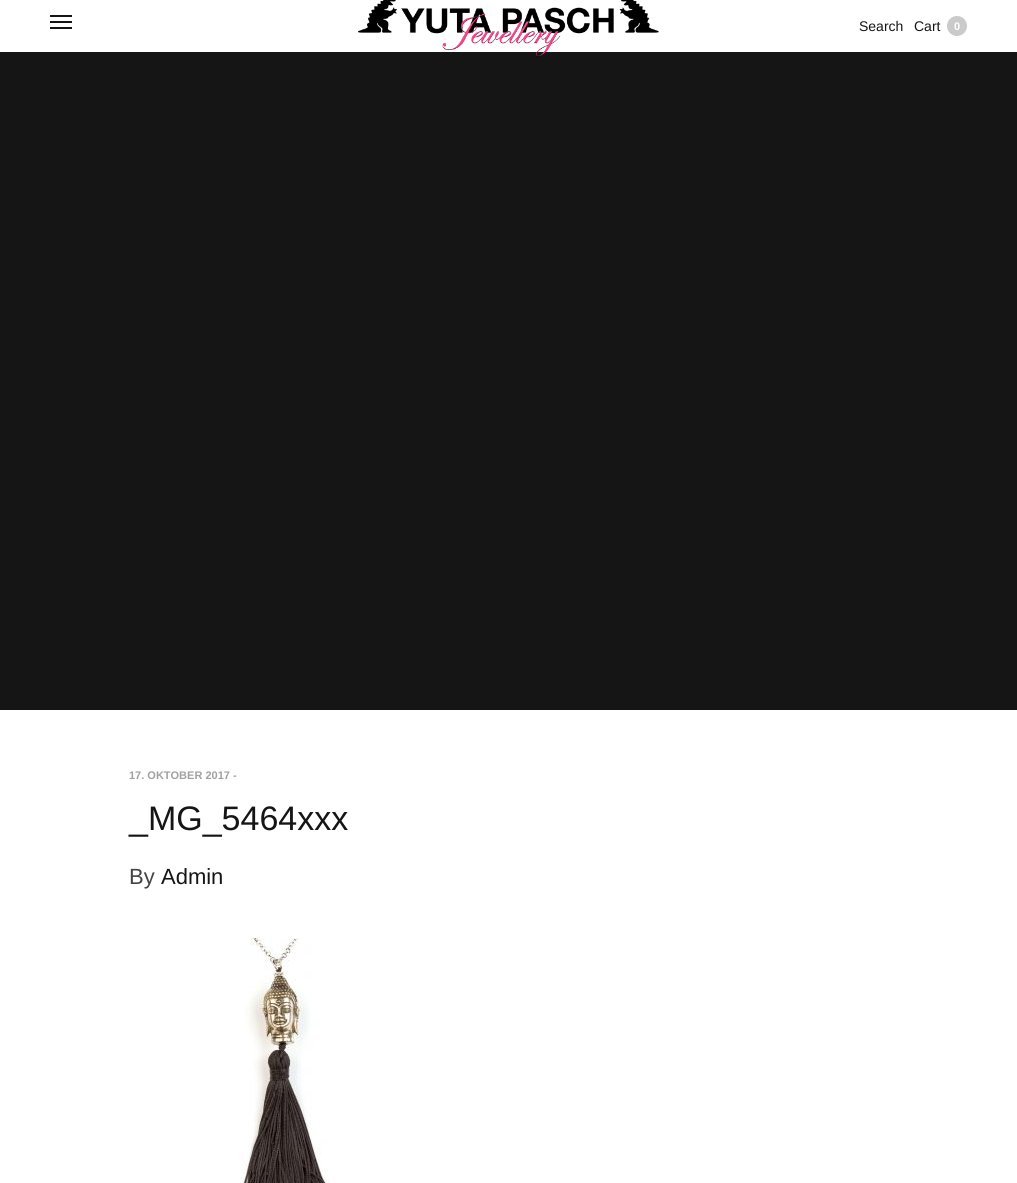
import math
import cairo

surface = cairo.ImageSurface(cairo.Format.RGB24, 1017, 1183)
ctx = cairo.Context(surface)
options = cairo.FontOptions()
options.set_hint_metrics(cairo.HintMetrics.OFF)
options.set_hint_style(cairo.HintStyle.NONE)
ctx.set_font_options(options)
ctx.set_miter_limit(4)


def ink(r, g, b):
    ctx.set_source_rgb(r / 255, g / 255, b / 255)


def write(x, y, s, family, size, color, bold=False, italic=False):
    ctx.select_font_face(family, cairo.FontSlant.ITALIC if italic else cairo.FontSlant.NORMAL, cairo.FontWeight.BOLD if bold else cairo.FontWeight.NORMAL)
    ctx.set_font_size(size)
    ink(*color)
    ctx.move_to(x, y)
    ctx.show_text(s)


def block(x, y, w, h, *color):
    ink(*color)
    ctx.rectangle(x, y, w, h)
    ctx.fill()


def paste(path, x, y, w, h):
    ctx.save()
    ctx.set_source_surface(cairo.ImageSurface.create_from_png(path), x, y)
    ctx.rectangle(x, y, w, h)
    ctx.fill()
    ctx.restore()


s1 = dict(family="Liberation Sans", size=14, color=(21, 21, 21))
s2 = dict(family="Liberation Sans", size=11, color=(255, 255, 255), bold=True)
s3 = dict(family="Liberation Sans", size=11, color=(161, 161, 161), bold=True)
s4 = dict(family="Liberation Sans", size=34, color=(21, 21, 21))
s5 = dict(family="Liberation Sans", size=22, color=(68, 68, 68))
s6 = dict(family="Liberation Sans", size=22, color=(21, 21, 21))

ink(255, 255, 255)
ctx.paint()
block(50, 15, 22, 2, 21, 21, 21)
block(50, 21, 22, 2, 21, 21, 21)
block(50, 27, 22, 2, 21, 21, 21)
block(0, 52, 1017, 658, 21, 21, 21)
paste("pic1.png", 358, 0, 301, 57)
write(859, 31, "Search", **s1)
write(914, 31, "Cart", **s1)
ink(202, 202, 202)
ctx.new_path()
ctx.arc(957, 26, 10, 0, 2 * math.pi)
ctx.fill()
write(954, 30, "0", **s2)
write(129, 779, "17. OKTOBER 2017 -", **s3)
write(129, 830, "_MG_5464xxx", **s4)
write(129, 884, "By", **s5)
write(161, 884, "Admin", **s6)
paste("pic2.png", 241, 938, 88, 245)
surface.write_to_png("screenshot.png")
